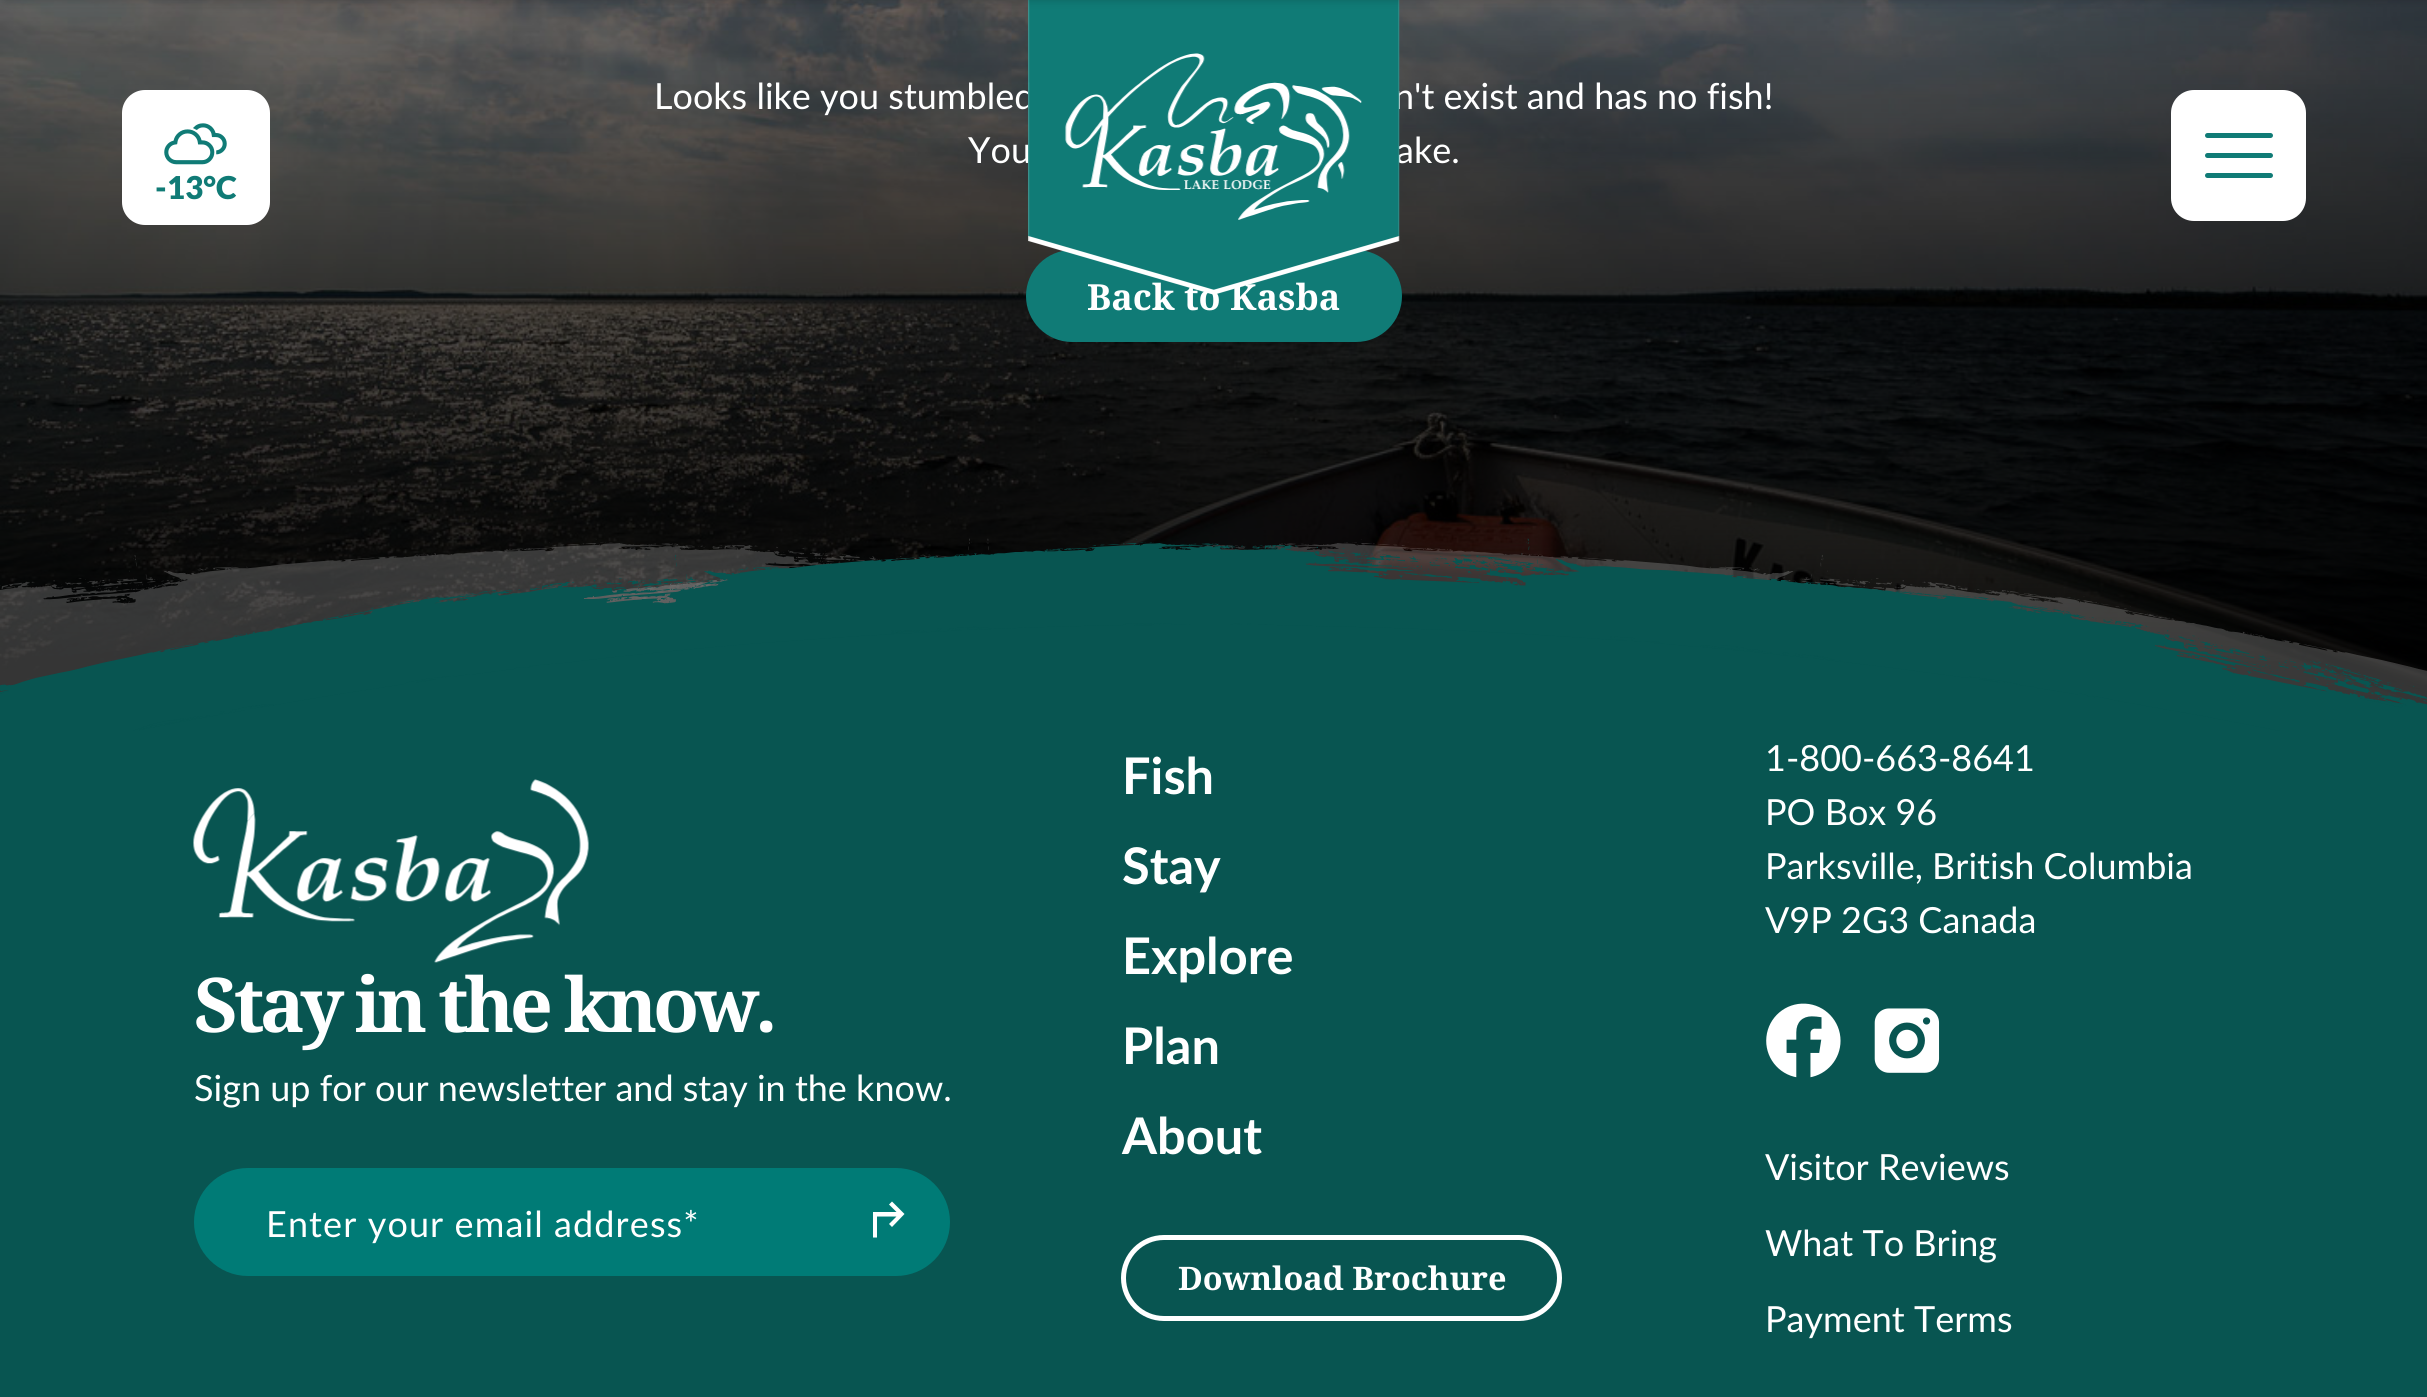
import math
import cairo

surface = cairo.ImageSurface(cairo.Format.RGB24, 2427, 1397)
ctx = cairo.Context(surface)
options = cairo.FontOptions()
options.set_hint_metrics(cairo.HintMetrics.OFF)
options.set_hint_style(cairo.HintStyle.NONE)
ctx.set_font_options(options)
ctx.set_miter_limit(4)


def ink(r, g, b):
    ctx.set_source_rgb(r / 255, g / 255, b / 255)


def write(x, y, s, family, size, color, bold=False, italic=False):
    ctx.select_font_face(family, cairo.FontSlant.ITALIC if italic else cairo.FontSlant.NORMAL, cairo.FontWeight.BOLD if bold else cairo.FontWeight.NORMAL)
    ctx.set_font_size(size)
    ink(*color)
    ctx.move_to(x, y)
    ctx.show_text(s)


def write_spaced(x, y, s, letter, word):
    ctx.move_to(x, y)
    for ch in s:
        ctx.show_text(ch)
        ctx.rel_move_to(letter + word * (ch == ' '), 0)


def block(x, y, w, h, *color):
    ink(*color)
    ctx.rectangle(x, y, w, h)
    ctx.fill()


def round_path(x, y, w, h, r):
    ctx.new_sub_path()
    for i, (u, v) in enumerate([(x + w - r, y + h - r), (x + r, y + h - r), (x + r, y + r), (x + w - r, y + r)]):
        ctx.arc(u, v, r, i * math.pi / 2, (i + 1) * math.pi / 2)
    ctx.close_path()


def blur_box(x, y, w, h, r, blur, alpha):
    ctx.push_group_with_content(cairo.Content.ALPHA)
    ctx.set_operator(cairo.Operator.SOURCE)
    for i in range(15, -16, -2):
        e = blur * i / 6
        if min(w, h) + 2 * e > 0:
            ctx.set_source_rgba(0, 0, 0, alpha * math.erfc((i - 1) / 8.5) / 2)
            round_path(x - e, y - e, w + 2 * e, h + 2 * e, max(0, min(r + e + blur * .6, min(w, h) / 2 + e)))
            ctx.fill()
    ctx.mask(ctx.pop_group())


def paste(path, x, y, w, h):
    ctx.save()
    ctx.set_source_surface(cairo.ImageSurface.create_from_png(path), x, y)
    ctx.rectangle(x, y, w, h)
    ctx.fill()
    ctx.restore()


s1 = dict(family="Lato", size=36, color=(255, 255, 255))
s2 = dict(family="Droid Serif", size=36, color=(255, 255, 255), bold=True)
s3 = dict(family="Lato", size=50.5, color=(255, 255, 255), bold=True)
s4 = dict(family="Droid Serif", size=32.4, color=(255, 255, 255), bold=True)
s5 = dict(family="Lato Black", size=31.5, color=(16, 123, 118))

ink(255, 255, 255)
ctx.paint()
paste("pic1.png", 0, 0, 2427, 705)
write(654, 109, "Looks like you stumbled", **s1)
write(1394, 109, "n't exist and has no fish!", **s1)
write(968, 163, "You", **s1)
write(1396, 163, "ake.", **s1)
ink(16, 123, 118)
round_path(1026, 250, 376, 92, 46)
ctx.fill()
write(1087, 310, "Back to Kasba", **s2)
block(0, 731, 2427, 666, 8, 85, 81)
paste("pic4.png", 509, 538, 1918, 167)
paste("pic2.png", 0, 538, 989, 154)
paste("pic3.png", 0, 538, 2427, 193)
paste("pic5.png", 193, 779, 396, 184)
ctx.set_font_size(75.5)
ink(255, 255, 255)
write_spaced(194, 1032, "Stay in the know.", -4.5, 0)
write(194, 1101, "Sign up for our newsletter and stay in the know.", **s1)
ink(0, 123, 118)
round_path(194, 1168, 756, 108, 54)
ctx.fill()
ink(255, 255, 255)
write_spaced(266, 1237, "Enter your email address*", 1.1, 0)
ctx.new_path()
ctx.move_to(892, 1227)
ctx.line_to(889, 1224)
ctx.line_to(896.5, 1216.5)
ctx.line_to(877, 1216.5)
ctx.line_to(877, 1237.5)
ctx.line_to(873, 1237.5)
ctx.line_to(873, 1212)
ctx.line_to(896.5, 1212)
ctx.line_to(889, 1204.5)
ctx.line_to(892, 1201.5)
ctx.line_to(904.5, 1214)
ctx.close_path()
ctx.fill()
write(1122, 794, "Fish", **s3)
write(1122, 884, "Stay", **s3)
write(1122, 974, "Explore", **s3)
write(1122, 1064, "Plan", **s3)
write(1122, 1154, "About", **s3)
round_path(1123.5, 1237.5, 436, 81, 40.5)
ctx.set_line_width(5)
ctx.stroke()
write(1178, 1290, "Download Brochure", **s4)
write(1765, 771, "1-800-663-8641", **s1)
write(1765, 825, "PO Box 96", **s1)
write(1765, 879, "Parksville, British Columbia", **s1)
write(1765, 933, "V9P 2G3 Canada", **s1)
paste("pic6.png", 1766, 1003, 75, 75)
paste("pic7.png", 1874, 1008, 66, 65)
write(1765, 1180, "Visitor Reviews", **s1)
write(1765, 1256, "What To Bring", **s1)
write(1765, 1332, "Payment Terms", **s1)
paste("pic9.png", 1028, 0, 372, 295)
ink(0, 0, 0)
blur_box(5, -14, 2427, 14, 0, 4.5, 0.2)
ink(255, 255, 255)
round_path(122, 90, 148, 135, 23)
ctx.fill()
paste("pic8.png", 164, 123, 63, 42)
write(155, 199, "-13°C", **s5)
ink(255, 255, 255)
round_path(2171, 90, 135, 131, 23)
ctx.fill()
ink(16, 123, 118)
round_path(2205, 133, 68, 5, 2.5)
ctx.fill()
round_path(2205, 153, 68, 5, 2.5)
ctx.fill()
round_path(2205, 173, 68, 5, 2.5)
ctx.fill()
surface.write_to_png("screenshot.png")
